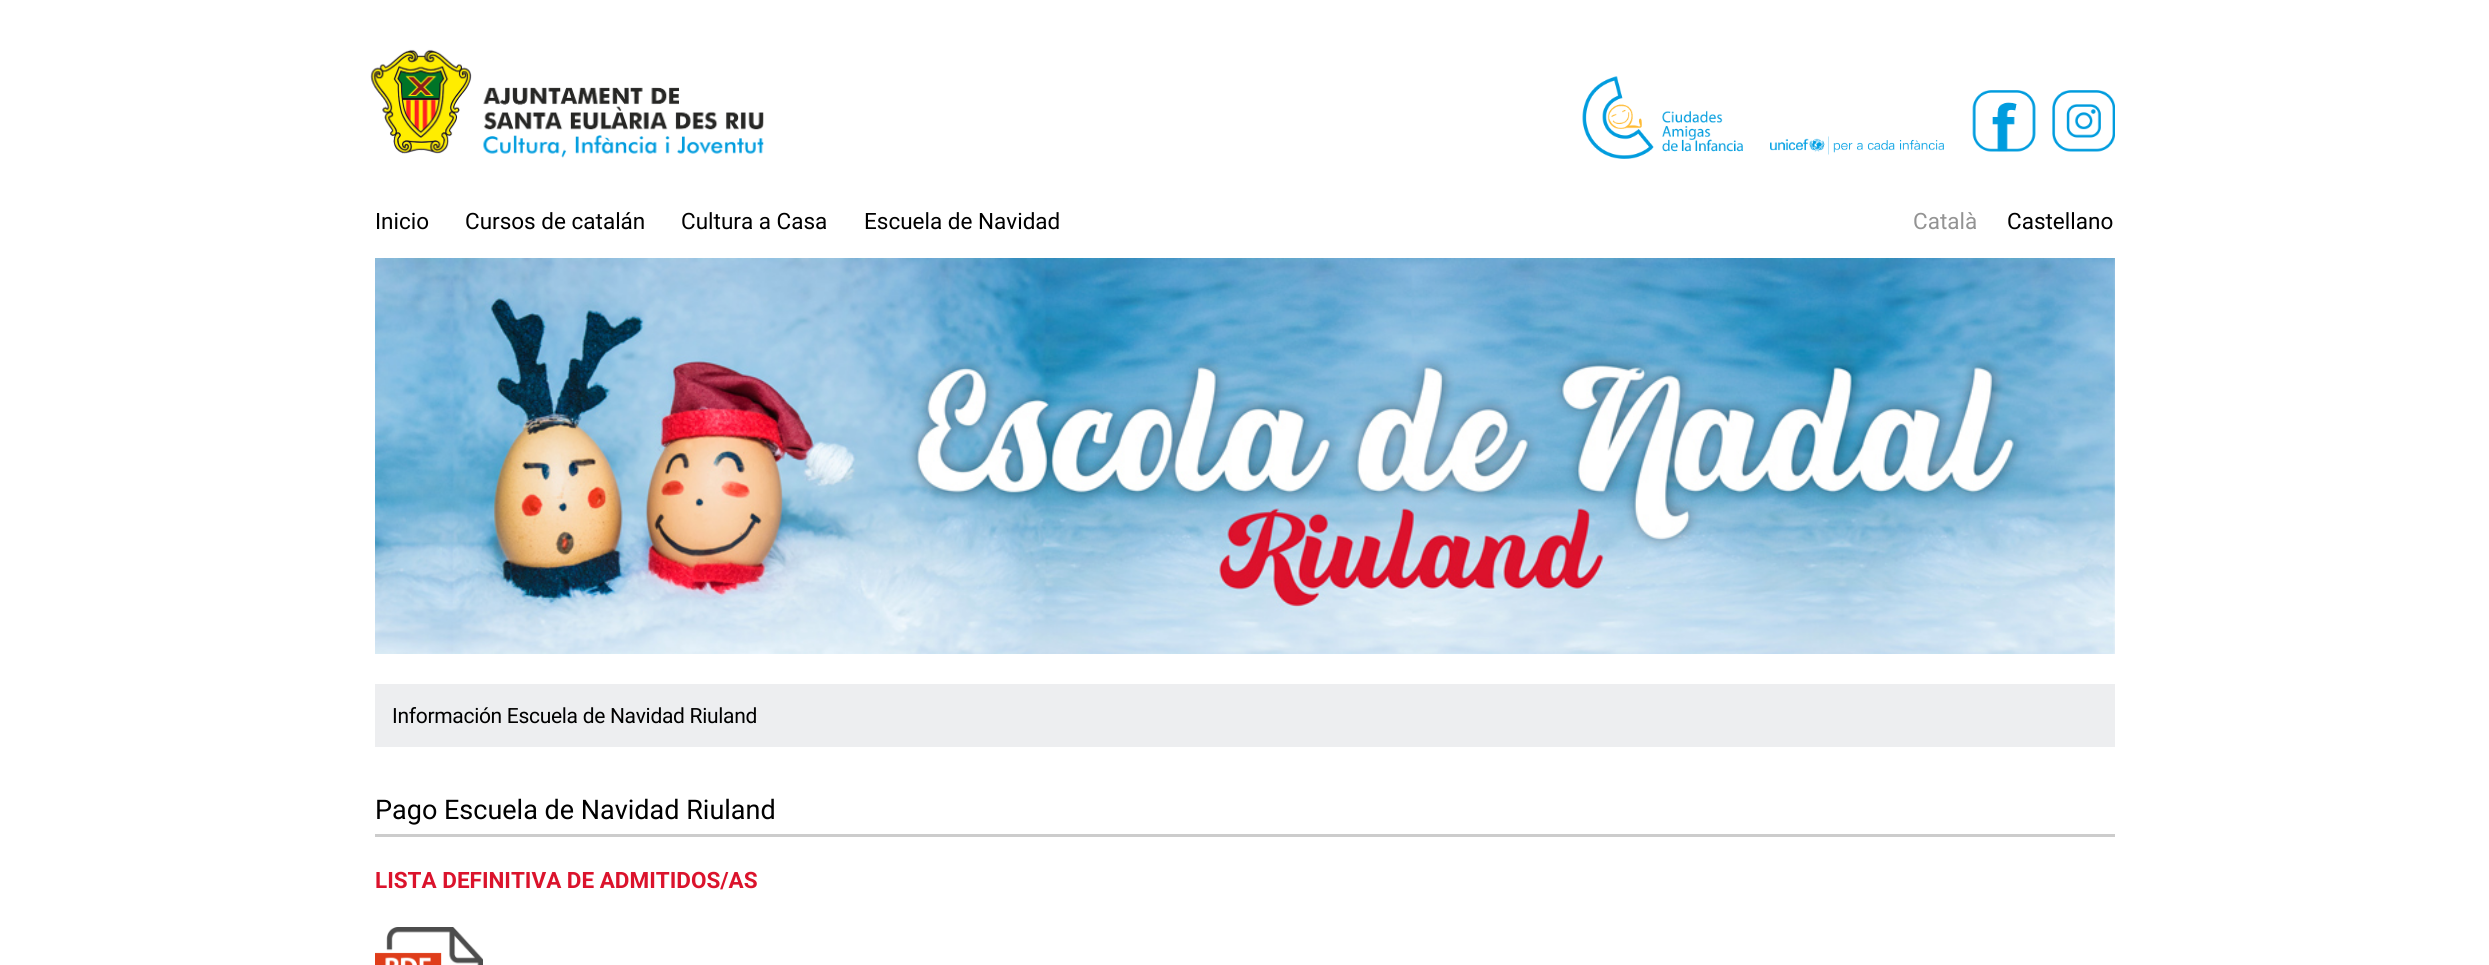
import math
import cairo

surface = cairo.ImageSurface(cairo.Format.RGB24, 2489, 965)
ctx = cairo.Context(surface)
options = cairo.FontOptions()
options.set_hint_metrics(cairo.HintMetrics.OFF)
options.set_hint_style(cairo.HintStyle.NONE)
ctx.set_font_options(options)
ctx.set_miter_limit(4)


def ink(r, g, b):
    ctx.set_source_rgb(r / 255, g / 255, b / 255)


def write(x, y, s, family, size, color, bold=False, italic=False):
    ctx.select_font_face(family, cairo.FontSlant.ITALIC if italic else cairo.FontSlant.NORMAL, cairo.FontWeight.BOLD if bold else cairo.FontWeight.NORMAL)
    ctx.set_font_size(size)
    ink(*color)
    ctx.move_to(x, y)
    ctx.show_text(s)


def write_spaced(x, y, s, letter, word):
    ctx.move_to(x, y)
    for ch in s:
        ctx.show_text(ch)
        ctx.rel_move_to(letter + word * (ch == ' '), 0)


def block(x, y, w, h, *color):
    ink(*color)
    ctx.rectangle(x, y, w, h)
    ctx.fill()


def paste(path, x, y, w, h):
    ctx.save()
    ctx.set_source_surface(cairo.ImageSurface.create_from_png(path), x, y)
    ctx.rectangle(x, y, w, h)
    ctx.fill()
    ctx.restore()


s1 = dict(family="Roboto", size=22.5, color=(0, 0, 0))
s2 = dict(family="Roboto", size=22.5, color=(147, 147, 147))
s3 = dict(family="Roboto", size=27, color=(0, 0, 0))
s4 = dict(family="Roboto", size=22.5, color=(219, 19, 44), bold=True)

ink(255, 255, 255)
ctx.paint()
paste("pic1.png", 370, 49, 394, 109)
paste("pic2.png", 1582, 76, 161, 83)
paste("pic3.png", 1770, 136, 174, 19)
paste("pic4.png", 1972, 90, 64, 62)
paste("pic5.png", 2052, 90, 63, 62)
write(375, 229, "Inicio", **s1)
write(465, 229, "Cursos de catalán", **s1)
write(681, 229, "Cultura a Casa", **s1)
write(864, 229, "Escuela de Navidad", **s1)
write(1913, 229, "Català", **s2)
write(2007, 229, "Castellano", **s1)
paste("pic6.png", 375, 258, 1740, 396)
block(375, 684, 1740, 63, 237, 238, 240)
ctx.set_font_size(21)
ink(0, 0, 0)
write_spaced(392, 723, "Información Escuela de Navidad Riuland", -0.3, 0)
write(375, 819, "Pago Escuela de Navidad Riuland", **s3)
block(375, 834, 1740, 3, 204, 204, 204)
write(375, 888, "LISTA DEFINITIVA DE ADMITIDOS/AS", **s4)
paste("pic7.png", 375, 927, 108, 38)
surface.write_to_png("screenshot.png")
